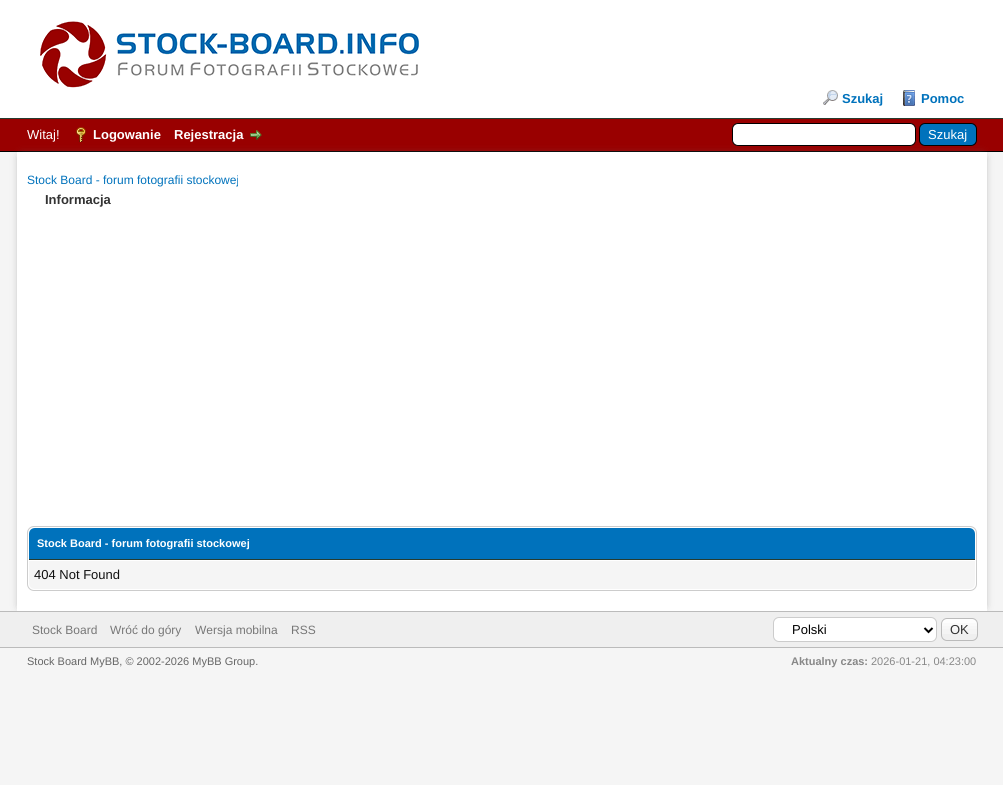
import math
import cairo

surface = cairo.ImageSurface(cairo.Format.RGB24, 1003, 785)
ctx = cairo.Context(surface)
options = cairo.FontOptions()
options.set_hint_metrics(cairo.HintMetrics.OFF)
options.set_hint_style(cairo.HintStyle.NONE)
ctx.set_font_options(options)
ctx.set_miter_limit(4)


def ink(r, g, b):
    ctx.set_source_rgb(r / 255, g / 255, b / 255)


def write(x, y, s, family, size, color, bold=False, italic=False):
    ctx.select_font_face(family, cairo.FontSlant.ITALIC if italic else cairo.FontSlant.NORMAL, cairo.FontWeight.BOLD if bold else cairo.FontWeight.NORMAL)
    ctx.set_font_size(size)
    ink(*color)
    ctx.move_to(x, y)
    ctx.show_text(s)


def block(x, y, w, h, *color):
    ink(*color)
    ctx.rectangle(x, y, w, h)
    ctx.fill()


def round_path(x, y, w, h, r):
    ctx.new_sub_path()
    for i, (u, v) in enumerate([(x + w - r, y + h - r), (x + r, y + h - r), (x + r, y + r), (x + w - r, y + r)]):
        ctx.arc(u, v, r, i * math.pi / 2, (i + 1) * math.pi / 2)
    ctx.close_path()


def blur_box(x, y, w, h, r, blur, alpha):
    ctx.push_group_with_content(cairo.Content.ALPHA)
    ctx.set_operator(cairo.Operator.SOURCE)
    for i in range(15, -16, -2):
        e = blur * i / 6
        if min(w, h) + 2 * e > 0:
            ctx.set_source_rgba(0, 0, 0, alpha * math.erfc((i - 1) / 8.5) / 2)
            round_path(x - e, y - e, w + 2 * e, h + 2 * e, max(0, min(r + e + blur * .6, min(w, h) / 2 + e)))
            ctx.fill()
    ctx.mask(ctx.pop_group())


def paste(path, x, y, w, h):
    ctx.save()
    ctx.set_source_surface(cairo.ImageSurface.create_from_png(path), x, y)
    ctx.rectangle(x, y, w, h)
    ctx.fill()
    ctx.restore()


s1 = dict(family="Liberation Sans", size=13, color=(0, 114, 188), bold=True)
s2 = dict(family="Liberation Sans", size=13, color=(255, 255, 255))
s3 = dict(family="Liberation Sans", size=13, color=(255, 255, 255), bold=True)
s4 = dict(family="Liberation Sans", size=12, color=(0, 114, 188))
s5 = dict(family="Liberation Sans", size=13, color=(51, 51, 51), bold=True)
s6 = dict(family="Liberation Sans", size=11, color=(255, 255, 255), bold=True)
s7 = dict(family="Liberation Sans", size=13, color=(17, 17, 17))
s8 = dict(family="Liberation Sans", size=12, color=(119, 119, 119))
s9 = dict(family="Liberation Sans", size=13, color=(0, 0, 0))
s10 = dict(family="Liberation Sans", size=13, color=(51, 51, 51))
s11 = dict(family="Liberation Sans", size=11, color=(102, 102, 102))
s12 = dict(family="Liberation Sans", size=11, color=(136, 136, 136), bold=True)
s13 = dict(family="Liberation Sans", size=11, color=(136, 136, 136))

ink(245, 245, 245)
ctx.paint()
block(0, 0, 1003, 118, 255, 255, 255)
block(0, 118, 1003, 1, 38, 60, 48)
paste("pic1.png", 40, 21, 379, 67)
paste("pic2.png", 823, 90, 15, 15)
write(842, 103, "Szukaj", **s1)
paste("pic3.png", 903, 90, 12, 16)
write(921, 103, "Pomoc", **s1)
block(0, 119, 1003, 32, 153, 0, 0)
block(0, 151, 1003, 1, 0, 0, 0)
write(27, 139, "Witaj!", **s2)
paste("pic4.png", 76, 127, 10, 15)
write(93, 139, "Logowanie", **s3)
write(174, 139, "Rejestracja", **s3)
paste("pic5.png", 250, 130, 12, 10)
round_path(732.5, 123.5, 183, 22, 5.5)
ctx.fill_preserve()
ink(0, 0, 0)
ctx.set_line_width(1)
ctx.stroke()
ink(0, 114, 188)
round_path(919.5, 123.5, 57, 22, 5.5)
ctx.fill_preserve()
ink(0, 0, 0)
ctx.stroke()
write(928, 139, "Szukaj", **s2)
ink(102, 102, 102)
blur_box(22, 157, 960, 449, 0, 5, 1)
block(17, 152, 970, 459, 255, 255, 255)
write(27, 184, "Stock Board - forum fotografii stockowej", **s4)
write(45, 204, "Informacja", **s5)
round_path(27.5, 526.5, 949, 64, 6.5)
ink(204, 204, 204)
ctx.stroke()
ink(0, 114, 188)
ctx.new_path()
ctx.move_to(35, 528)
ctx.line_to(969, 528)
ctx.curve_to(972.5, 528, 975, 530.5, 975, 534)
ctx.line_to(975, 560)
ctx.line_to(29, 560)
ctx.line_to(29, 534)
ctx.curve_to(29, 530.5, 31.5, 528, 35, 528)
ctx.close_path()
ctx.fill()
block(29, 559, 946, 1, 38, 60, 48)
write(37, 547, "Stock Board - forum fotografii stockowej", **s6)
ink(245, 245, 245)
ctx.new_path()
ctx.move_to(29, 560)
ctx.line_to(975, 560)
ctx.line_to(975, 583)
ctx.curve_to(975, 586.5, 972.5, 589, 969, 589)
ctx.line_to(35, 589)
ctx.curve_to(31.5, 589, 29, 586.5, 29, 583)
ctx.close_path()
ctx.fill()
block(29, 560, 946, 1, 255, 255, 255)
write(34, 579, "404 Not Found", **s7)
block(0, 612, 1003, 35, 239, 239, 239)
block(0, 611, 1003, 1, 187, 187, 187)
block(0, 647, 1003, 1, 187, 187, 187)
write(32, 634, "Stock Board", **s8)
write(110, 634, "Wróć do góry", **s8)
write(195, 634, "Wersja mobilna", **s8)
write(291, 634, "RSS", **s8)
ink(255, 255, 255)
round_path(773.5, 617.5, 163, 24, 5.5)
ctx.fill_preserve()
ink(204, 204, 204)
ctx.stroke()
ctx.new_path()
ctx.move_to(924.5, 628)
ctx.line_to(928.5, 632)
ctx.line_to(932.5, 628)
ink(0, 0, 0)
ctx.set_line_width(2)
ctx.stroke()
write(792, 634, "Polski", **s9)
paste("pic6.png", 941, 619, 37, 15)
round_path(941.5, 618.5, 36, 22, 5.5)
ink(187, 187, 187)
ctx.set_line_width(1)
ctx.stroke()
write(950, 634, "OK", **s10)
write(27, 665, "Stock Board MyBB, © 2002-2026 MyBB Group.", **s11)
write(791, 665, "Aktualny czas:", **s12)
write(871, 665, "2026-01-21, 04:23:00", **s13)
surface.write_to_png("screenshot.png")
